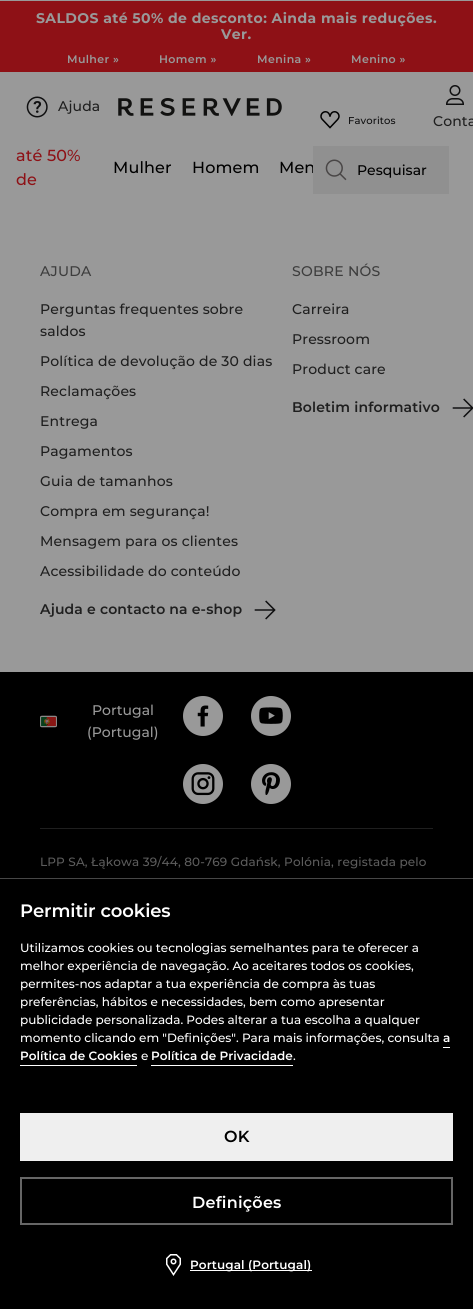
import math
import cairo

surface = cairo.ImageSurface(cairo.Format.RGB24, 473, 1309)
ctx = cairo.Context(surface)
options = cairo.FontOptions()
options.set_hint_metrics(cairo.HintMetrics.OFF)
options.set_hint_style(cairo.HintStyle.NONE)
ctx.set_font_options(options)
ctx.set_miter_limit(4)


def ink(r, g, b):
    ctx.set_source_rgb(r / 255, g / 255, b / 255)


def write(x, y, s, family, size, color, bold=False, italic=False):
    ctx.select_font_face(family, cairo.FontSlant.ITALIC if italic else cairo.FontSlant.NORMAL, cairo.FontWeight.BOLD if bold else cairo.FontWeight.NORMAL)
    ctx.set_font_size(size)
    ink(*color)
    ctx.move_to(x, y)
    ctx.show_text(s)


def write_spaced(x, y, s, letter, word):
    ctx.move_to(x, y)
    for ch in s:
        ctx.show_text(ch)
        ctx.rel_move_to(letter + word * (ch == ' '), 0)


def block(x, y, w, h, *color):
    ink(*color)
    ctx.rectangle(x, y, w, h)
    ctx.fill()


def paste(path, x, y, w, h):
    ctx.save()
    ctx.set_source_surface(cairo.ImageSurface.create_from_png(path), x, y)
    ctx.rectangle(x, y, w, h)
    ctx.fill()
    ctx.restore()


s1 = dict(family="Montserrat Medium", size=14, color=(0, 0, 0))
s2 = dict(family="Montserrat Medium", size=14, color=(153, 153, 153))
s3 = dict(family="Montserrat Medium", size=12, color=(255, 255, 255))
s4 = dict(family="Montserrat SemiBold", size=12, color=(255, 255, 255))

ink(153, 153, 153)
ctx.paint()
block(0, 1, 473, 71, 142, 17, 22)
ctx.select_font_face("Montserrat", cairo.FontSlant.NORMAL, cairo.FontWeight.BOLD)
ctx.set_font_size(14)
ink(153, 153, 153)
write_spaced(36, 23, "SALDOS até 50% de desconto: Ainda mais reduções.", 0.4, 0)
write_spaced(221, 39, "Ver.", 0.4, 0)
ctx.select_font_face("Montserrat SemiBold")
ctx.set_font_size(11)
write_spaced(67, 63, "Mulher »", 0.4, 0)
write_spaced(159, 63, "Homem »", 0.4, 0)
write_spaced(257, 63, "Menina »", 0.4, 0)
write_spaced(351, 63, "Menino »", 0.4, 0)
paste("pic1.png", 26, 96, 22, 22)
ctx.select_font_face("Montserrat Medium")
ctx.set_font_size(14)
ink(31, 31, 31)
write_spaced(58, 111, "Ajuda", 0.15, 0)
paste("pic2.png", 118, 98, 164, 18)
paste("pic3.png", 320, 111, 20, 18)
ctx.set_font_size(10)
ink(15, 15, 16)
write_spaced(348, 124, "Favoritos", 0.1, 0)
paste("pic4.png", 446, 85, 18, 20)
ctx.set_font_size(14)
ink(31, 31, 31)
write_spaced(433, 126, "Conta", 0.15, 0)
ctx.set_font_size(16)
ink(142, 17, 22)
write_spaced(16, 161, "até 50%", 0.15, 0)
write_spaced(16, 185, "de", 0.15, 0)
ink(0, 0, 0)
write_spaced(113, 173, "Mulher", 0.15, 0)
write_spaced(192, 173, "Homem", 0.15, 0)
ctx.save()
ctx.rectangle(8, 146, 305, 50)
ctx.clip()
write_spaced(279, 173, "Men", 0.15, 0)
ctx.restore()
block(313, 146, 136, 48, 144, 144, 144)
paste("pic5.png", 325, 159, 22, 22)
write(357, 175, "Pesquisar", **s1)
ink(61, 61, 61)
write_spaced(40, 276, "AJUDA", 0.25, 0)
ink(31, 31, 31)
write_spaced(40, 314, "Perguntas frequentes sobre", 0.15, 0)
write_spaced(40, 336, "saldos", 0.15, 0)
write_spaced(40, 366, "Política de devolução de 30 dias", 0.15, 0)
write_spaced(40, 396, "Reclamações", 0.15, 0)
write_spaced(40, 426, "Entrega", 0.15, 0)
write_spaced(40, 456, "Pagamentos", 0.15, 0)
write_spaced(40, 486, "Guia de tamanhos", 0.15, 0)
write_spaced(40, 516, "Compra em segurança!", 0.15, 0)
write_spaced(40, 546, "Mensagem para os clientes", 0.15, 0)
write_spaced(40, 576, "Acessibilidade do conteúdo", 0.15, 0)
ctx.select_font_face("Montserrat SemiBold")
write_spaced(40, 614, "Ajuda e contacto na e-shop", 0.15, 0)
paste("pic6.png", 254, 600, 22, 20)
ctx.select_font_face("Montserrat Medium")
ink(61, 61, 61)
write_spaced(292, 276, "SOBRE NÓS", 0.25, 0)
ink(31, 31, 31)
write_spaced(292, 314, "Carreira", 0.15, 0)
write_spaced(292, 344, "Pressroom", 0.15, 0)
write_spaced(292, 374, "Product care", 0.15, 0)
ctx.select_font_face("Montserrat SemiBold")
write_spaced(292, 412, "Boletim informativo", 0.15, 0)
paste("pic7.png", 452, 398, 21, 20)
block(0, 672, 473, 206, 0, 0, 0)
paste("pic8.png", 40, 715, 17, 13)
write(92, 715, "Portugal", **s2)
write(87, 737, "(Portugal)", **s2)
ctx.new_path()
ctx.arc(203, 716, 20, 0, 2 * math.pi)
ctx.fill()
paste("pic9.png", 197, 705, 12, 22)
ctx.arc(271, 716, 20, 0, 2 * math.pi)
ctx.fill()
paste("pic10.png", 259, 707, 24, 17)
ctx.arc(203, 784, 20, 0, 2 * math.pi)
ctx.fill()
paste("pic11.png", 191, 772, 24, 24)
ctx.arc(271, 784, 20, 0, 2 * math.pi)
ctx.fill()
paste("pic12.png", 262, 772, 18, 23)
block(40, 828, 393, 1, 31, 31, 31)
ctx.set_font_size(12)
ink(92, 92, 92)
write_spaced(40, 866, "LPP SA, Łąkowa 39/44, 80-769 Gdańsk, Polónia, registada pelo", 0.15, 0)
block(0, 879, 473, 430, 0, 0, 0)
block(0, 878, 473, 1, 71, 71, 71)
ctx.select_font_face("Montserrat SemiBold")
ctx.set_font_size(18)
ink(255, 255, 255)
write_spaced(20, 917, "Permitir cookies", -0.1, 0)
write(20, 952, "Utilizamos cookies ou tecnologias semelhantes para te oferecer a", **s3)
write(20, 970, "melhor experiência de navegação. Ao aceitares todos os cookies,", **s3)
write(20, 988, "permites-nos adaptar a tua experiência de compra às tuas", **s3)
write(20, 1006, "preferências, hábitos e necessidades, bem como apresentar", **s3)
write(20, 1024, "publicidade personalizada. Podes alterar a tua escolha a qualquer", **s3)
write(20, 1042, "momento clicando em \"Definições\". Para mais informações, consulta", **s3)
write(443, 1042, "a", **s4)
block(443, 1047, 7, 1, 255, 255, 255)
write(20, 1060, "Política de Cookies", **s4)
block(20, 1065, 117, 1, 255, 255, 255)
write(141, 1060, "e", **s3)
write(151, 1060, "Política de Privacidade", **s4)
block(151, 1065, 142, 1, 255, 255, 255)
write(293, 1060, ".", **s3)
block(20, 1113, 433, 48, 239, 239, 239)
ctx.select_font_face("Montserrat SemiBold")
ctx.set_font_size(16)
ink(0, 0, 0)
write_spaced(224, 1142, "OK", 0.25, 0)
ctx.rectangle(21, 1178, 431, 46)
ink(102, 102, 102)
ctx.stroke()
ink(255, 255, 255)
write_spaced(192, 1208, "Definições", 0.25, 0)
paste("pic13.png", 166, 1254, 15, 22)
block(190, 1270, 122, 1, 255, 255, 255)
ctx.set_font_size(12)
write_spaced(190, 1269, "Portugal (Portugal)", 0.1, 0)
surface.write_to_png("screenshot.png")
